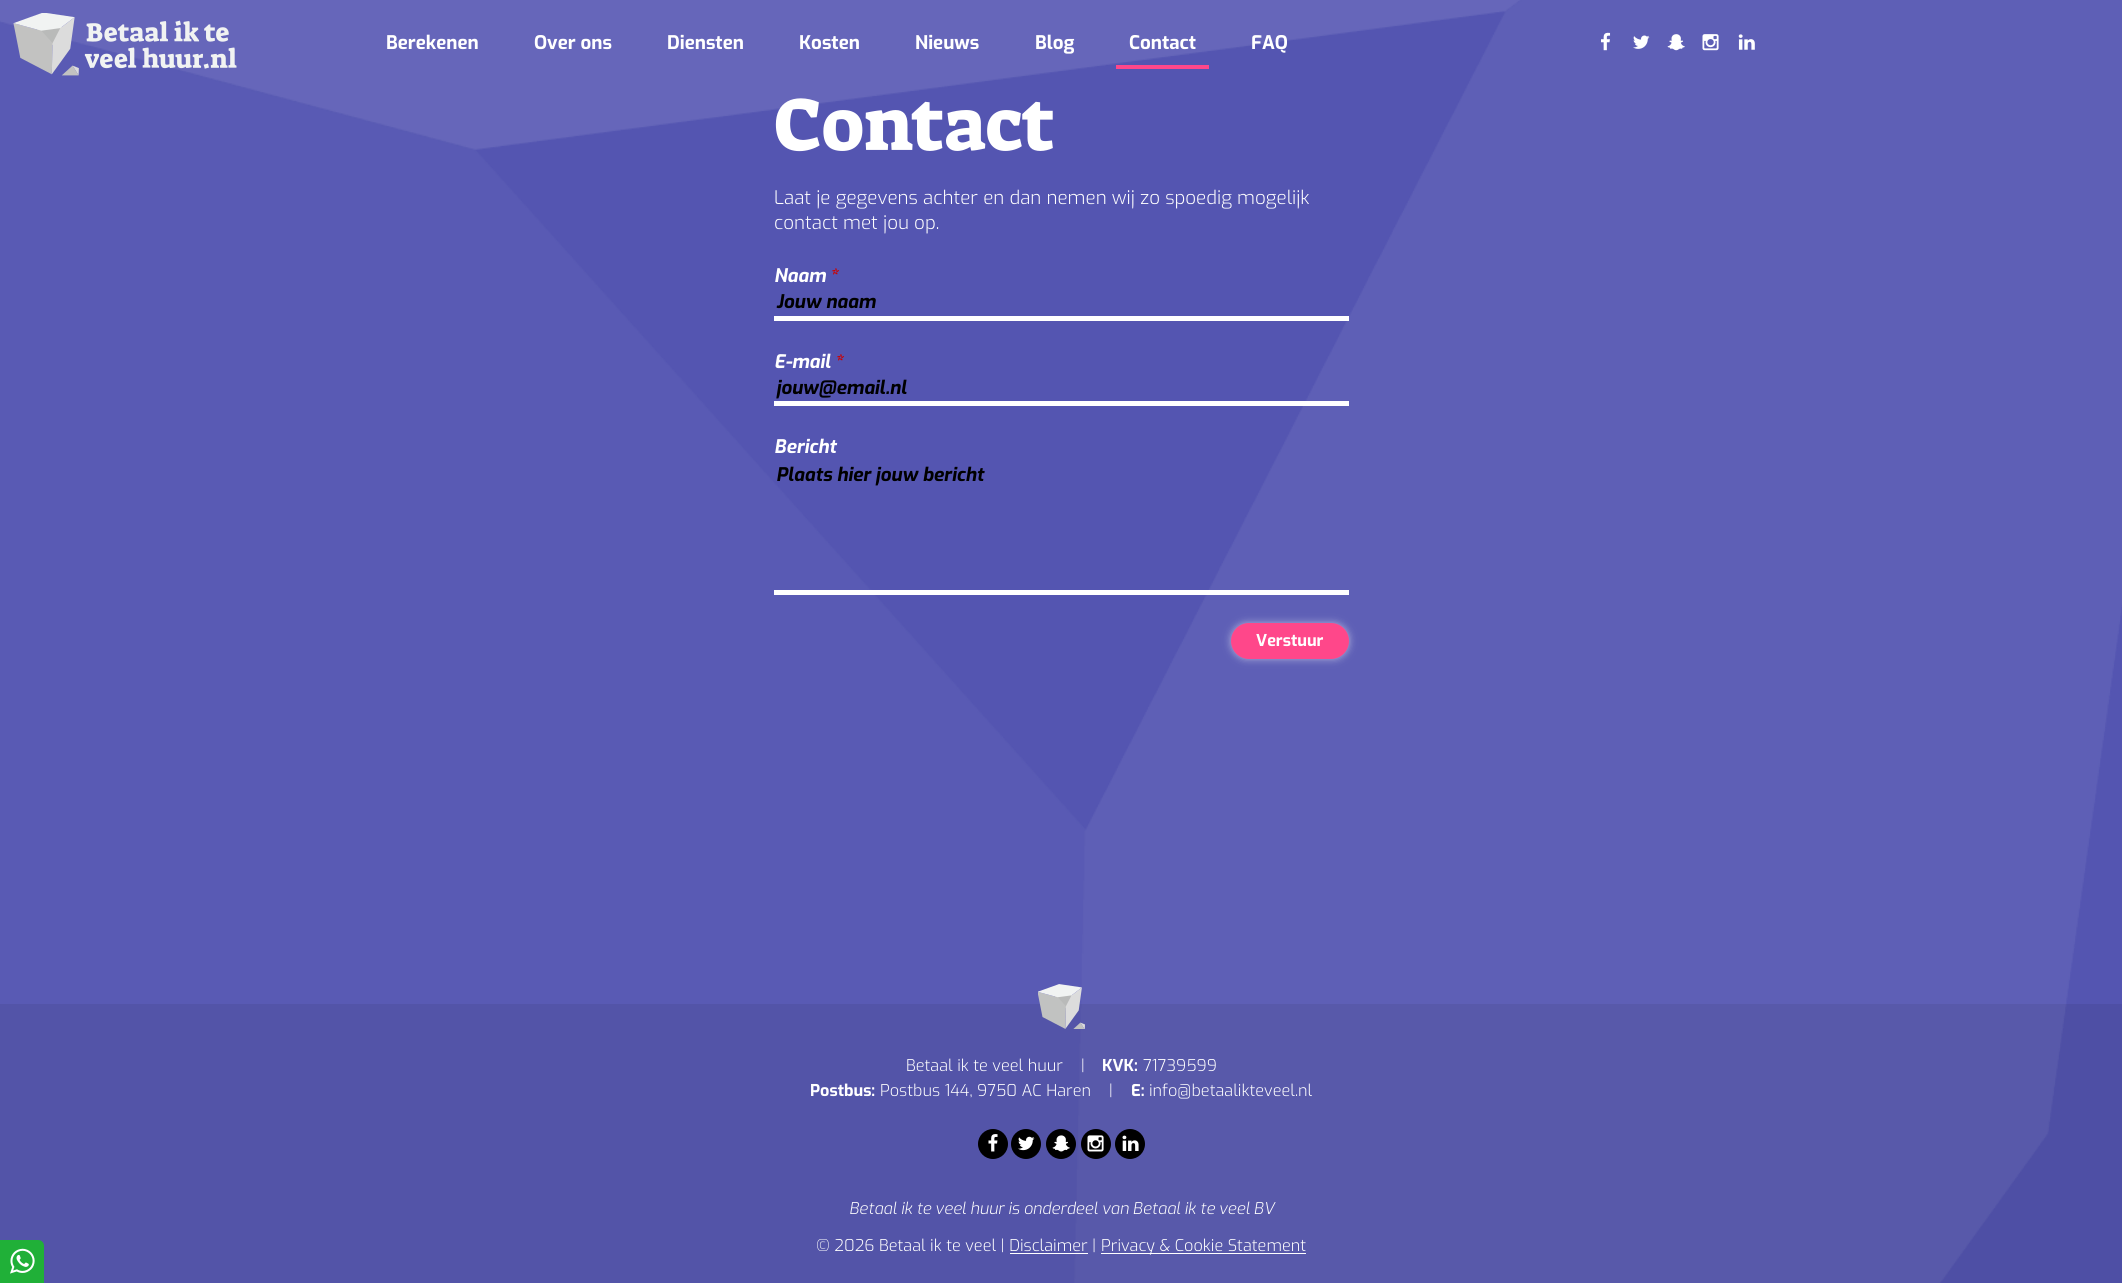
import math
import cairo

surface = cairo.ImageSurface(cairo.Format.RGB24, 2122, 1283)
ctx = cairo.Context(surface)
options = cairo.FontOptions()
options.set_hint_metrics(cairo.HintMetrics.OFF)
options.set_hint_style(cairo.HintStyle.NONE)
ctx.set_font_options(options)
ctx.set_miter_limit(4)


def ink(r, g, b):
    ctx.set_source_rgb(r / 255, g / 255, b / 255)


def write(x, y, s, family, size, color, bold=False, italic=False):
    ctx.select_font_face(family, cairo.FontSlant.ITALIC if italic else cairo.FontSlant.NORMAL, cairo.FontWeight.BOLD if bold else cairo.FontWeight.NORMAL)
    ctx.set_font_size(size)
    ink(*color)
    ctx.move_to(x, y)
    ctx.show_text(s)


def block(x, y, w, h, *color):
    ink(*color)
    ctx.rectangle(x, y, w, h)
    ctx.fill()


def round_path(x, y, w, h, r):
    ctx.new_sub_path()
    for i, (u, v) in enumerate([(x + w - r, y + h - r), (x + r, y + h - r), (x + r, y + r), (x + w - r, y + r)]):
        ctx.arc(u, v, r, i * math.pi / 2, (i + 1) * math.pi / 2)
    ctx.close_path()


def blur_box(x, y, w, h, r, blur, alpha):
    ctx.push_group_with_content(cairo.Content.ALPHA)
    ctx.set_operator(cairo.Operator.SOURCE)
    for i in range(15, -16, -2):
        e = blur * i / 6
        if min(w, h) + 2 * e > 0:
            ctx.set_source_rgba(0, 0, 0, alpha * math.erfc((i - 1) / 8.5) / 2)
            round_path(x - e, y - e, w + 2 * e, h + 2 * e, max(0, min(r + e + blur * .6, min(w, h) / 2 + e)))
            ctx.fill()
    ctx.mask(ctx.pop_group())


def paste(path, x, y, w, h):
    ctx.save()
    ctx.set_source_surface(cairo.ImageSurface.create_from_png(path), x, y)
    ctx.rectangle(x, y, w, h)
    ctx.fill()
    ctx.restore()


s1 = dict(family="Exo", size=18.75, color=(255, 255, 255), bold=True)
s2 = dict(family="Suez One", size=75, color=(255, 255, 255))
s3 = dict(family="Exo Light", size=18.75, color=(255, 255, 255))
s4 = dict(family="Exo", size=18.75, color=(255, 255, 255), bold=True, italic=True)
s5 = dict(family="Exo", size=18.75, color=(204, 0, 0), bold=True, italic=True)
s6 = dict(family="Exo", size=18.75, color=(0, 0, 0), bold=True, italic=True)
s7 = dict(family="Exo", size=16.25, color=(255, 255, 255), bold=True)
s8 = dict(family="Exo Light", size=16.25, color=(255, 255, 255))
s9 = dict(family="Exo Light", size=16.25, color=(255, 255, 255), italic=True)

ink(84, 85, 177)
ctx.paint()
paste("pic1.png", 0, 0, 2122, 1283)
paste("pic2.png", 13, 13, 224, 63)
write(386, 49, "Berekenen", **s1)
write(534, 49, "Over ons", **s1)
write(667, 49, "Diensten", **s1)
write(799, 49, "Kosten", **s1)
write(915, 49, "Nieuws", **s1)
write(1035, 49, "Blog", **s1)
write(1129, 49, "Contact", **s1)
block(1116, 65, 93, 4, 255, 71, 138)
write(1251, 49, "FAQ", **s1)
paste("pic3.png", 1601, 32, 10, 19)
paste("pic4.png", 1633, 35, 17, 14)
paste("pic5.png", 1667, 34, 18, 17)
paste("pic6.png", 1702, 34, 17, 17)
paste("pic7.png", 1738, 34, 17, 16)
write(774, 150, "Contact", **s2)
write(774, 204, "Laat je gegevens achter en dan nemen wij zo spoedig mogelijk", **s3)
write(774, 229, "contact met jou op.", **s3)
write(774, 282, "Naam", **s4)
write(830, 282, "*", **s5)
block(774, 316, 575, 5, 255, 255, 255)
write(776, 308, "Jouw naam", **s6)
write(774, 368, "E-mail", **s4)
write(835, 368, "*", **s5)
block(774, 401, 575, 5, 255, 255, 255)
write(776, 394, "jouw@email.nl", **s6)
write(774, 453, "Bericht", **s4)
block(774, 590, 575, 5, 255, 255, 255)
write(776, 481, "Plaats hier jouw bericht", **s6)
ink(255, 255, 255)
blur_box(1231, 623, 118, 36, 18, 4, 0.5)
ink(255, 71, 138)
round_path(1231, 623, 118, 36, 18)
ctx.fill()
write(1256, 646, "Verstuur", **s7)
ctx.set_source_rgba(0, 0, 0, 0.07)
ctx.rectangle(0, 1004, 2122, 279)
ctx.fill()
paste("pic8.png", 1038, 984, 47, 45)
write(906, 1071, "Betaal ik te veel huur    |", **s8)
write(1102, 1071, "KVK:", **s7)
write(1143, 1071, "71739599", **s8)
write(810, 1096, "Postbus:", **s7)
write(880, 1096, "Postbus 144, 9750 AC Haren    |", **s8)
write(1131, 1096, "E:", **s7)
write(1149, 1096, "info@betaalikteveel.nl", **s8)
ink(0, 0, 0)
ctx.new_path()
ctx.arc(993, 1144, 15, 0, 2 * math.pi)
ctx.fill()
paste("pic9.png", 988, 1134, 10, 18)
ctx.arc(1026, 1144, 15, 0, 2 * math.pi)
ctx.fill()
paste("pic10.png", 1018, 1136, 17, 15)
ctx.arc(1061, 1144, 15, 0, 2 * math.pi)
ctx.fill()
paste("pic11.png", 1052, 1135, 18, 17)
ctx.arc(1096, 1144, 15, 0, 2 * math.pi)
ctx.fill()
paste("pic12.png", 1087, 1135, 17, 17)
ctx.arc(1130, 1144, 15, 0, 2 * math.pi)
ctx.fill()
paste("pic13.png", 1122, 1135, 17, 16)
write(849, 1214, "Betaal ik te veel huur is onderdeel van Betaal ik te veel BV", **s9)
write(816, 1251, "© 2026 Betaal ik te veel | Disclaimer |", **s8)
block(1101, 1253, 205, 1, 255, 255, 255)
write(1101, 1251, "Privacy & Cookie Statement", **s8)
block(1010, 1253, 78, 1, 255, 255, 255)
ink(32, 176, 56)
ctx.new_path()
ctx.move_to(0, 1240)
ctx.line_to(38, 1240)
ctx.curve_to(41.5, 1240, 44, 1242.5, 44, 1246)
ctx.line_to(44, 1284)
ctx.line_to(0, 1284)
ctx.close_path()
ctx.fill()
paste("pic14.png", 10, 1248, 25, 26)
surface.write_to_png("screenshot.png")
